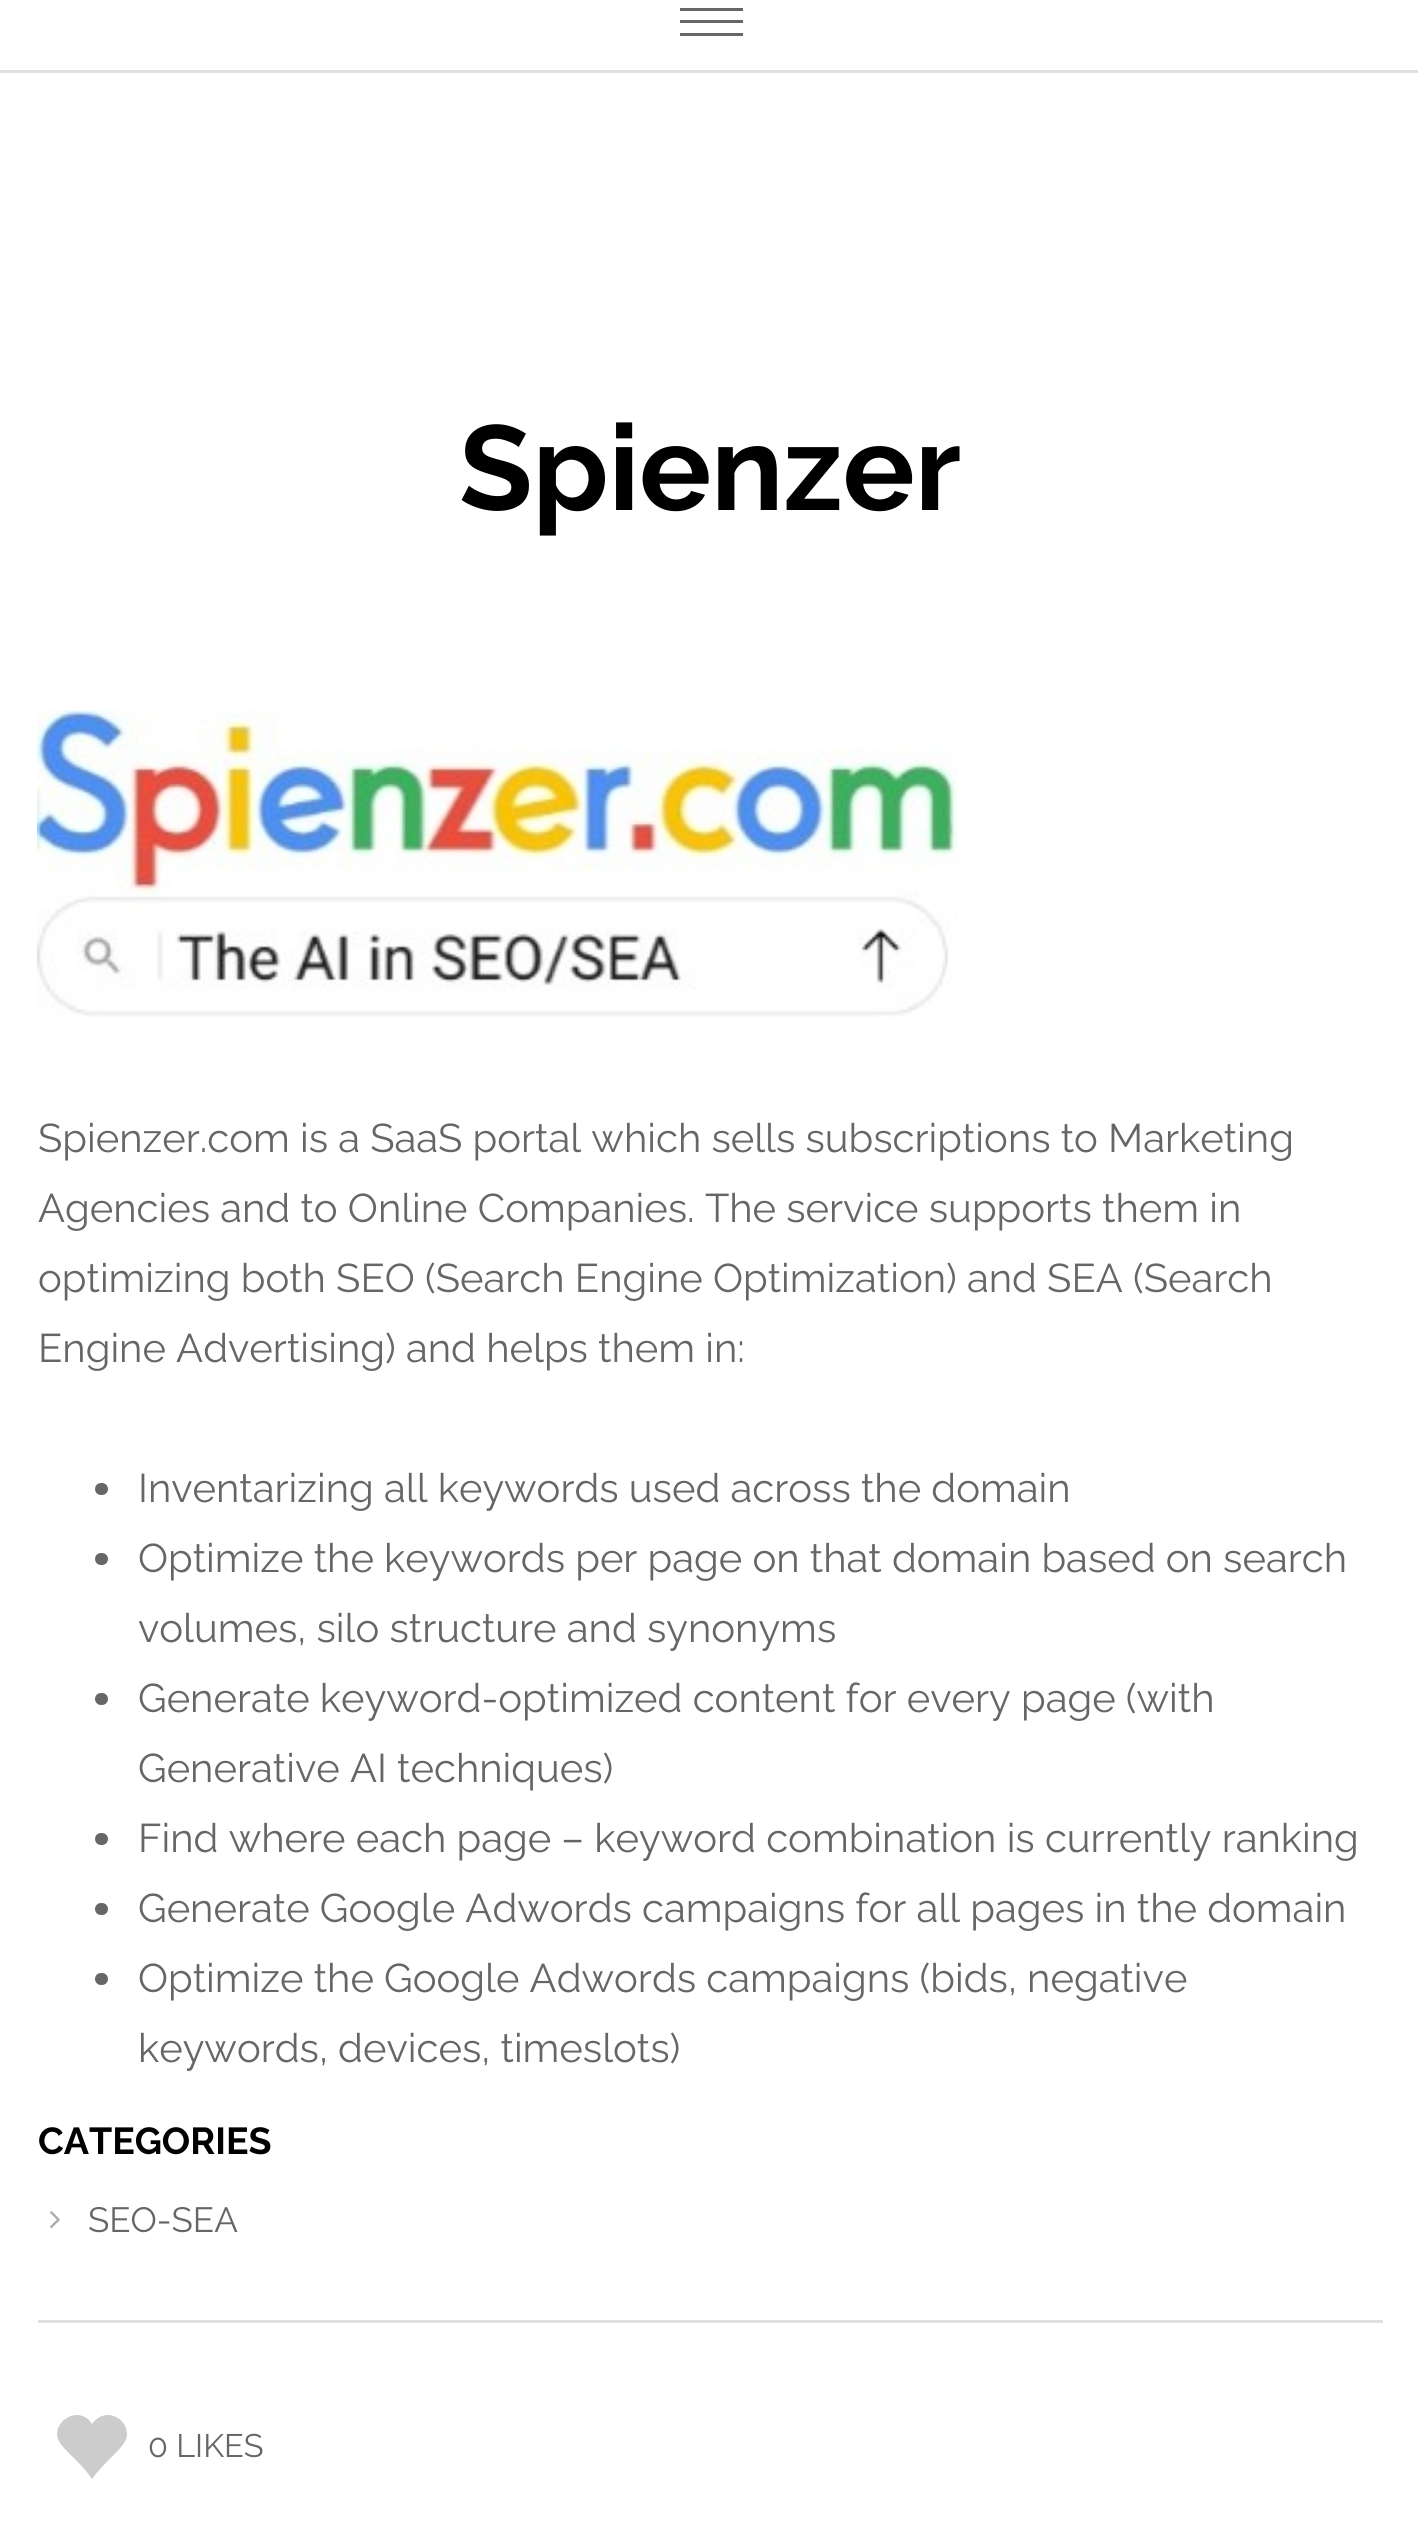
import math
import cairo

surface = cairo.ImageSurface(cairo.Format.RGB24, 1418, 2547)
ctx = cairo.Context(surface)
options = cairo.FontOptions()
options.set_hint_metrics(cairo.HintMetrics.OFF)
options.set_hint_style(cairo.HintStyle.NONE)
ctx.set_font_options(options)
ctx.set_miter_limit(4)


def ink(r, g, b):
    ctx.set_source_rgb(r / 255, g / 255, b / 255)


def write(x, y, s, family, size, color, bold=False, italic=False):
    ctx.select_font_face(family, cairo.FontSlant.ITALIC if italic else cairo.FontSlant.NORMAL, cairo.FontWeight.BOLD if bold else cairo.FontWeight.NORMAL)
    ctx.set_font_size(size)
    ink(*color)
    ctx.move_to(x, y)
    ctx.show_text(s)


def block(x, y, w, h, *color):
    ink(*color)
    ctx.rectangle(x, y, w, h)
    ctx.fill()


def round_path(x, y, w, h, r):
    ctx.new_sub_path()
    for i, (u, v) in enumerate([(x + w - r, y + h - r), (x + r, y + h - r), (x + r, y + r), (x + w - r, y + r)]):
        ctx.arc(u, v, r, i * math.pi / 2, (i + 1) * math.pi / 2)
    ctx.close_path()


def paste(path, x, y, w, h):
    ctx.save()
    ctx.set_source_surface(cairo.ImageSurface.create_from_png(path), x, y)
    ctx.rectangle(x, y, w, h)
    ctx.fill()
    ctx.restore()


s1 = dict(family="Raleway", size=120, color=(0, 0, 0), bold=True)
s2 = dict(family="Raleway", size=40, color=(102, 102, 102))
s3 = dict(family="Raleway", size=37.5, color=(0, 0, 0), bold=True)
s4 = dict(family="Raleway", size=35, color=(102, 102, 102))
s5 = dict(family="Raleway", size=32.5, color=(102, 102, 102))

ink(255, 255, 255)
ctx.paint()
block(0, 70, 1418, 3, 224, 224, 224)
block(680, 33, 63, 3, 102, 102, 102)
block(680, 8, 63, 3, 102, 102, 102)
block(680, 20, 63, 3, 102, 102, 102)
write(459, 510, "Spienzer", **s1)
paste("pic1.png", 37, 710, 921, 307)
write(38, 1152, "Spienzer.com is a SaaS portal which sells subscriptions to Marketing", **s2)
write(38, 1222, "Agencies and to Online Companies. The service supports them in", **s2)
write(38, 1292, "optimizing both SEO (Search Engine Optimization) and SEA (Search", **s2)
write(38, 1362, "Engine Advertising) and helps them in:", **s2)
round_path(95, 1483, 13, 12, 6)
ctx.fill()
write(138, 1502, "Inventarizing all keywords used across the domain", **s2)
round_path(95, 1553, 13, 12, 6)
ctx.fill()
write(138, 1572, "Optimize the keywords per page on that domain based on search", **s2)
write(138, 1642, "volumes, silo structure and synonyms", **s2)
round_path(95, 1693, 13, 12, 6)
ctx.fill()
write(138, 1712, "Generate keyword-optimized content for every page (with", **s2)
write(138, 1782, "Generative AI techniques)", **s2)
round_path(95, 1833, 13, 12, 6)
ctx.fill()
write(138, 1852, "Find where each page – keyword combination is currently ranking", **s2)
round_path(95, 1903, 13, 12, 6)
ctx.fill()
write(138, 1922, "Generate Google Adwords campaigns for all pages in the domain", **s2)
round_path(95, 1973, 13, 12, 6)
ctx.fill()
write(138, 1992, "Optimize the Google Adwords campaigns (bids, negative", **s2)
write(138, 2062, "keywords, devices, timeslots)", **s2)
block(38, 2320, 1345, 3, 224, 224, 224)
write(38, 2154, "CATEGORIES", **s3)
paste("pic2.png", 50, 2211, 10, 18)
write(88, 2232, "SEO-SEA", **s4)
ink(204, 204, 204)
ctx.new_path()
ctx.move_to(92, 2424)
ctx.curve_to(105, 2406, 127, 2418, 127, 2434)
ctx.curve_to(127, 2447, 107, 2458, 92, 2479)
ctx.curve_to(78, 2458, 57, 2447, 57, 2434)
ctx.curve_to(57, 2418, 81, 2406, 92, 2424)
ctx.close_path()
ctx.fill()
write(148, 2457, "0 LIKES", **s5)
surface.write_to_png("screenshot.png")
